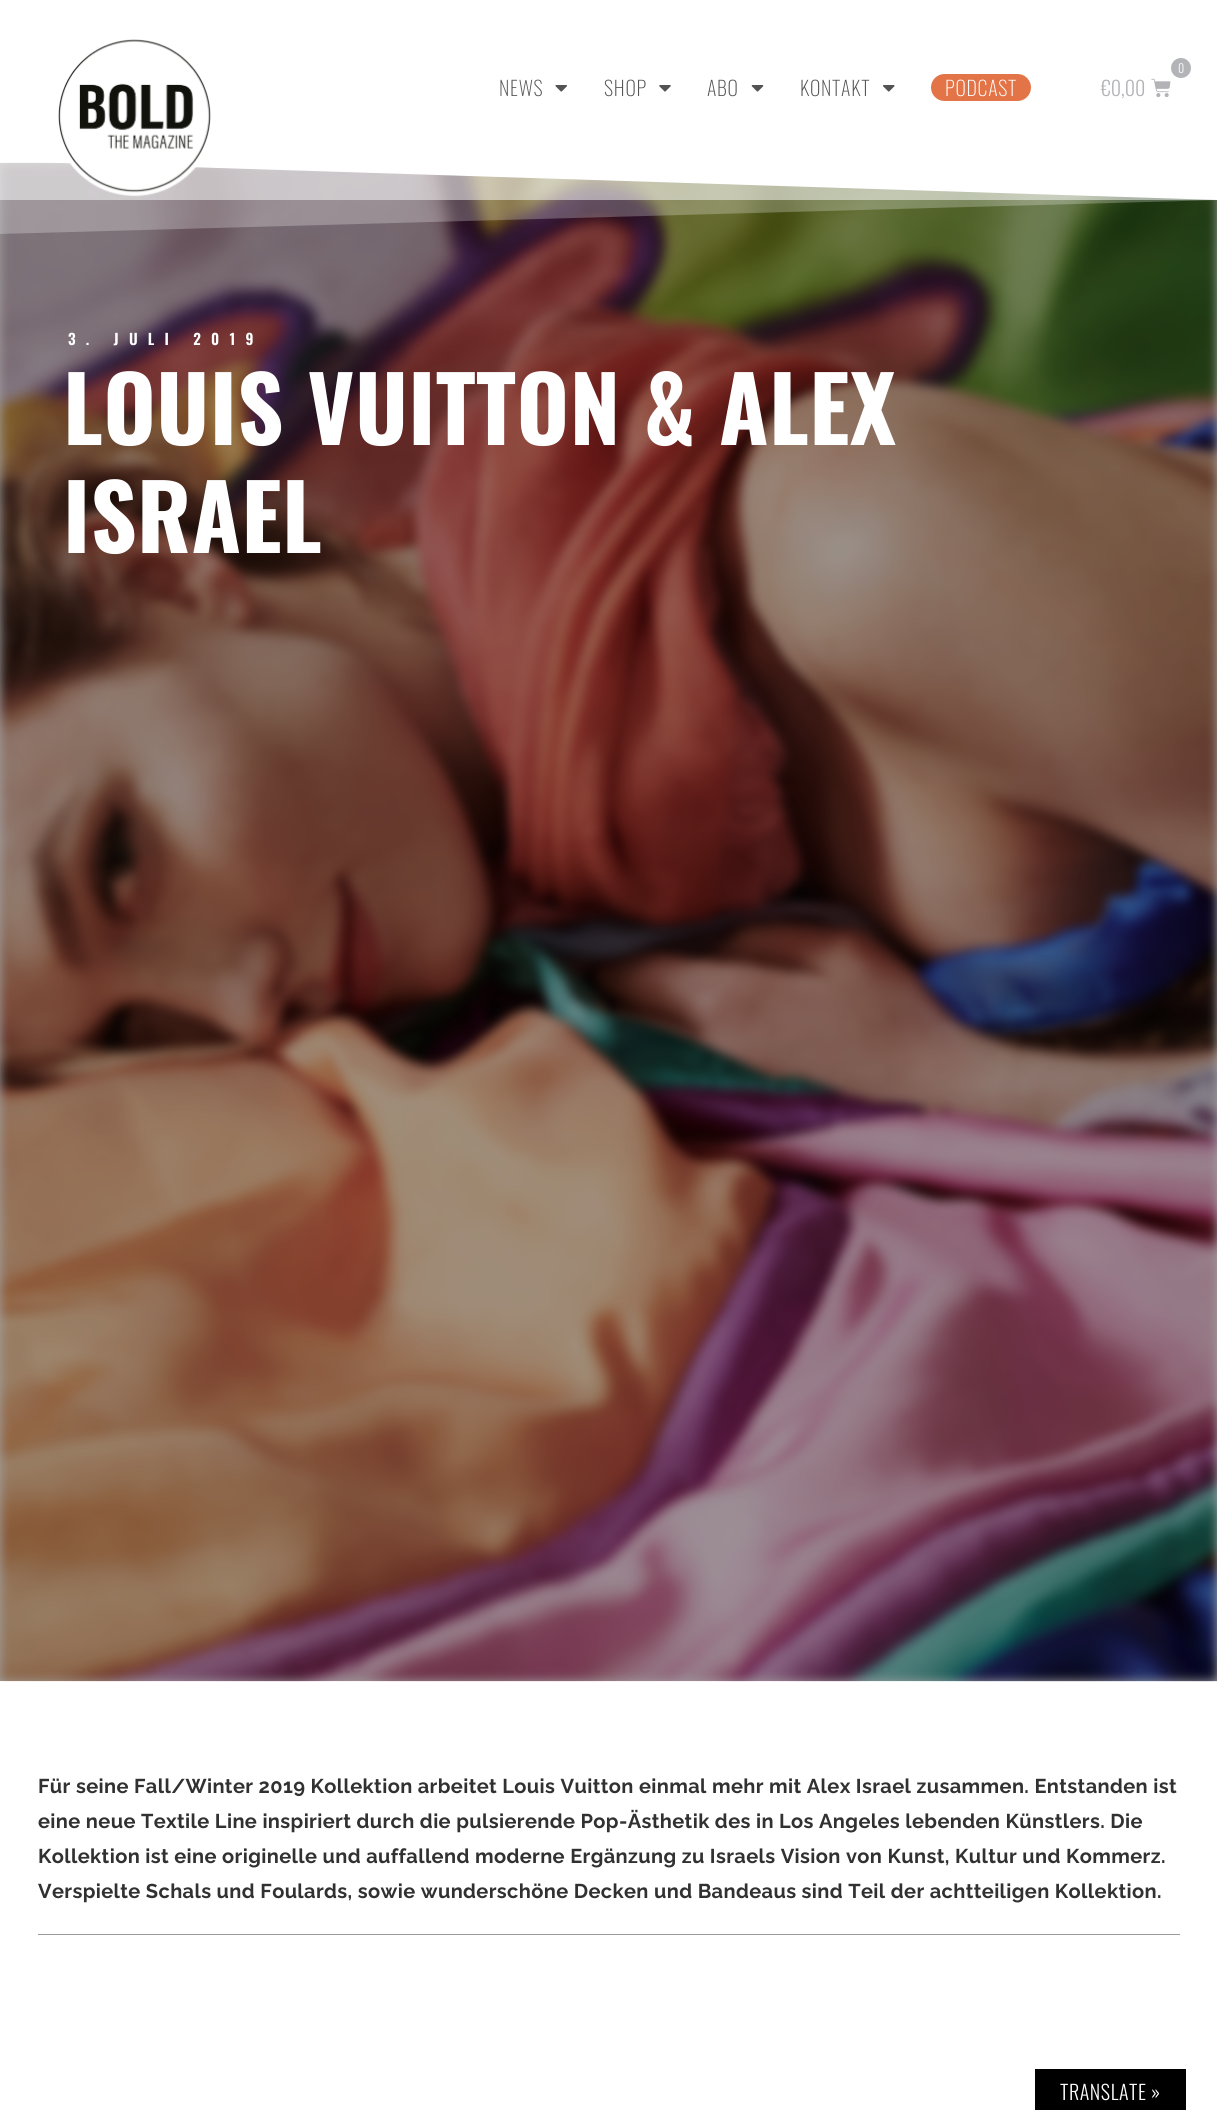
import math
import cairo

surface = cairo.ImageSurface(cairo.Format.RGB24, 1217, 2110)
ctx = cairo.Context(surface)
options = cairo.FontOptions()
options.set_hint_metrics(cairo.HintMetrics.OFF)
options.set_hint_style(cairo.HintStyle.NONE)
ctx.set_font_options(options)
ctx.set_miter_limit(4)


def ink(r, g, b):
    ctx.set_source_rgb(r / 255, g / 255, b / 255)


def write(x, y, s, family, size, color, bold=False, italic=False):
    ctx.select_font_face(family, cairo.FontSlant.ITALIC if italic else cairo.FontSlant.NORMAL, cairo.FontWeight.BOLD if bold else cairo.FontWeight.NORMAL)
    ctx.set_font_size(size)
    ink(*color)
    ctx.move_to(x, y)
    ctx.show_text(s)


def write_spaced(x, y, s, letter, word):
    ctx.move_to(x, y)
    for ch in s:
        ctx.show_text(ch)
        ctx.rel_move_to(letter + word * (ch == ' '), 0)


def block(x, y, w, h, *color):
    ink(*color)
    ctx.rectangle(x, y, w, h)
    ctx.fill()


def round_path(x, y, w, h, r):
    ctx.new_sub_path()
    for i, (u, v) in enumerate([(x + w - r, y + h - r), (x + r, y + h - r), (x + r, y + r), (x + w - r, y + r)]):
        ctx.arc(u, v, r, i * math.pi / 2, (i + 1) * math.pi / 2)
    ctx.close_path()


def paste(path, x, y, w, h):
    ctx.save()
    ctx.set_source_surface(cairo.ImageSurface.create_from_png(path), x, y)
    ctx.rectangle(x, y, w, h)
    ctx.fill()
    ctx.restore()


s1 = dict(family="Oswald Light", size=12, color=(255, 255, 255))
s2 = dict(family="Oswald Light", size=20, color=(179, 180, 183))

ink(255, 255, 255)
ctx.paint()
block(0, 163, 1217, 1518, 161, 161, 161)
paste("pic7.png", 0, 162, 1217, 1520)
ink(255, 255, 255)
ctx.new_path()
ctx.move_to(-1, 161)
ctx.line_to(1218, 161)
ctx.line_to(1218, 200)
ctx.close_path()
ctx.fill()
ctx.set_source_rgba(1, 1, 1, 0.5)
ctx.rectangle(0, 162, 1217, 38)
ctx.fill()
ctx.set_source_rgba(1, 1, 1, 0.25)
ctx.new_path()
ctx.move_to(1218, 161)
ctx.line_to(-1, 161)
ctx.line_to(-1, 234)
ctx.line_to(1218, 200)
ctx.close_path()
ctx.fill()
paste("pic1.png", 58, 39, 153, 158)
ctx.select_font_face("Oswald ExtraLight")
ctx.set_font_size(20)
ink(83, 83, 83)
write_spaced(499, 96, "NEWS", 0.75, 0)
paste("pic2.png", 555, 85, 12, 7)
write_spaced(604, 96, "SHOP", 0.75, 0)
paste("pic3.png", 659, 85, 12, 7)
write_spaced(707, 96, "ABO", 0.75, 0)
paste("pic4.png", 751, 85, 13, 7)
write_spaced(800, 96, "KONTAKT", 0.75, 0)
paste("pic5.png", 883, 85, 12, 7)
ink(226, 116, 72)
round_path(931, 74, 100, 27, 13.5)
ctx.fill()
ink(255, 255, 255)
write_spaced(945, 96, "PODCAST", 0.75, 0)
ink(179, 180, 183)
ctx.new_path()
ctx.arc(1181, 68, 10, 0, 2 * math.pi)
ctx.fill()
write(1178, 73, "0", **s1)
paste("pic6.png", 1151, 78, 20, 20)
write(1101, 96, "€0,00", **s2)
ctx.select_font_face("Oswald SemiBold")
ctx.set_font_size(15)
ink(255, 255, 255)
write_spaced(68, 345, "3. JULI 2019", 10.25, 0)
ctx.select_font_face("Oswald", cairo.FontSlant.NORMAL, cairo.FontWeight.BOLD)
ctx.set_font_size(90)
write_spaced(63, 445, "LOUIS VUITTON & ALEX", 0.38, 0)
write_spaced(63, 553, "ISRAEL", 0.38, 0)
block(38, 1934, 1142, 1, 154, 154, 154)
ctx.select_font_face("Raleway", cairo.FontSlant.NORMAL, cairo.FontWeight.BOLD)
ctx.set_font_size(20)
ink(49, 49, 49)
write_spaced(38, 1793, "Für seine Fall/Winter 2019 Kollektion arbeitet Louis Vuitton einmal mehr mit Alex Israel zusammen. Entstanden ist", 0.38, 0)
write_spaced(38, 1828, "eine neue Textile Line inspiriert durch die pulsierende Pop-Ästhetik des in Los Angeles lebenden Künstlers. Die", 0.38, 0)
write_spaced(38, 1863, "Kollektion ist eine originelle und auffallend moderne Ergänzung zu Israels Vision von Kunst, Kultur und Kommerz.", 0.38, 0)
write_spaced(38, 1898, "Verspielte Schals und Foulards, sowie wunderschöne Decken und Bandeaus sind Teil der achtteiligen Kollektion.", 0.38, 0)
block(1035, 2069, 151, 41, 0, 0, 0)
ctx.select_font_face("Oswald Light")
ink(255, 255, 255)
write_spaced(1060, 2100, "TRANSLATE »", 0.6, 0)
surface.write_to_png("screenshot.png")
